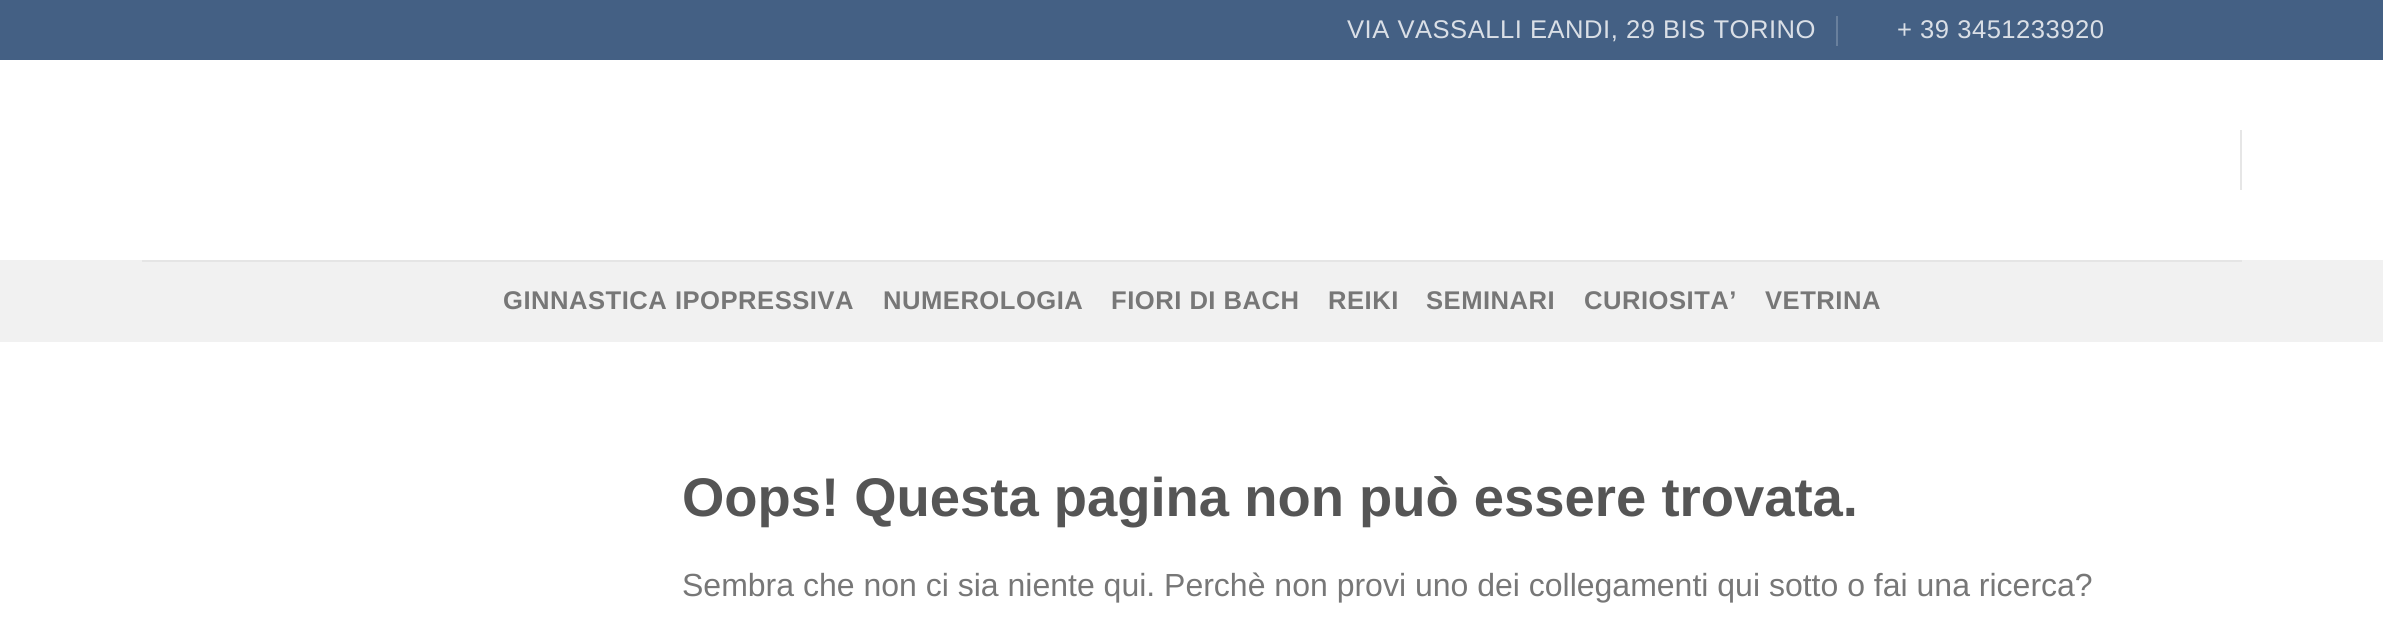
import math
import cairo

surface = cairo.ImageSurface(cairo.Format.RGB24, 2383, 629)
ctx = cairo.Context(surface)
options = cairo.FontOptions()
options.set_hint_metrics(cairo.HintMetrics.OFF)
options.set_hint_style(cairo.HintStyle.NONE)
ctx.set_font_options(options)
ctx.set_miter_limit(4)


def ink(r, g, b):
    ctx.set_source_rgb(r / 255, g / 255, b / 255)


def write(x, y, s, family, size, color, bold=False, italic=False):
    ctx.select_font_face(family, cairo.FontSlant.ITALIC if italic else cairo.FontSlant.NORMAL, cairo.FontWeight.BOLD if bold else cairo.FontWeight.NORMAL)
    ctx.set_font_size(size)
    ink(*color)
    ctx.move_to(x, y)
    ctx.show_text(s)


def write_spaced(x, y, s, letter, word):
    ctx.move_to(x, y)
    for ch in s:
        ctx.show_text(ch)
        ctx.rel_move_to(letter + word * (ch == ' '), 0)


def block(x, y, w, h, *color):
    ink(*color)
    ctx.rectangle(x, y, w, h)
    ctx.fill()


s1 = dict(family="Liberation Sans", size=54.4, color=(85, 85, 85), bold=True)
s2 = dict(family="Liberation Sans", size=32, color=(119, 119, 119))

ink(255, 255, 255)
ctx.paint()
block(0, 0, 2383, 60, 68, 96, 132)
ctx.select_font_face("Liberation Sans")
ctx.set_font_size(25.6)
ink(218, 223, 230)
write_spaced(1347, 38, "VIA VASSALLI EANDI, 29 BIS TORINO", 0.5, 0)
block(1836, 16, 2, 30, 105, 128, 157)
ink(218, 223, 230)
write_spaced(1897, 38, "+ 39 3451233920", 0.5, 0)
block(2240, 130, 2, 60, 230, 230, 230)
block(0, 260, 2383, 82, 241, 241, 241)
block(142, 260, 2100, 2, 229, 229, 229)
ctx.select_font_face("Liberation Sans", cairo.FontSlant.NORMAL, cairo.FontWeight.BOLD)
ink(119, 119, 119)
write_spaced(503, 309, "GINNASTICA IPOPRESSIVA", 0.5, 0)
write_spaced(883, 309, "NUMEROLOGIA", 0.5, 0)
write_spaced(1111, 309, "FIORI DI BACH", 0.5, 0)
write_spaced(1328, 309, "REIKI", 0.5, 0)
write_spaced(1426, 309, "SEMINARI", 0.5, 0)
write_spaced(1584, 309, "CURIOSITA’", 0.5, 0)
write_spaced(1765, 309, "VETRINA", 0.5, 0)
write(682, 516, "Oops! Questa pagina non può essere trovata.", **s1)
write(682, 596, "Sembra che non ci sia niente qui. Perchè non provi uno dei collegamenti qui sotto o fai una ricerca?", **s2)
surface.write_to_png("screenshot.png")
